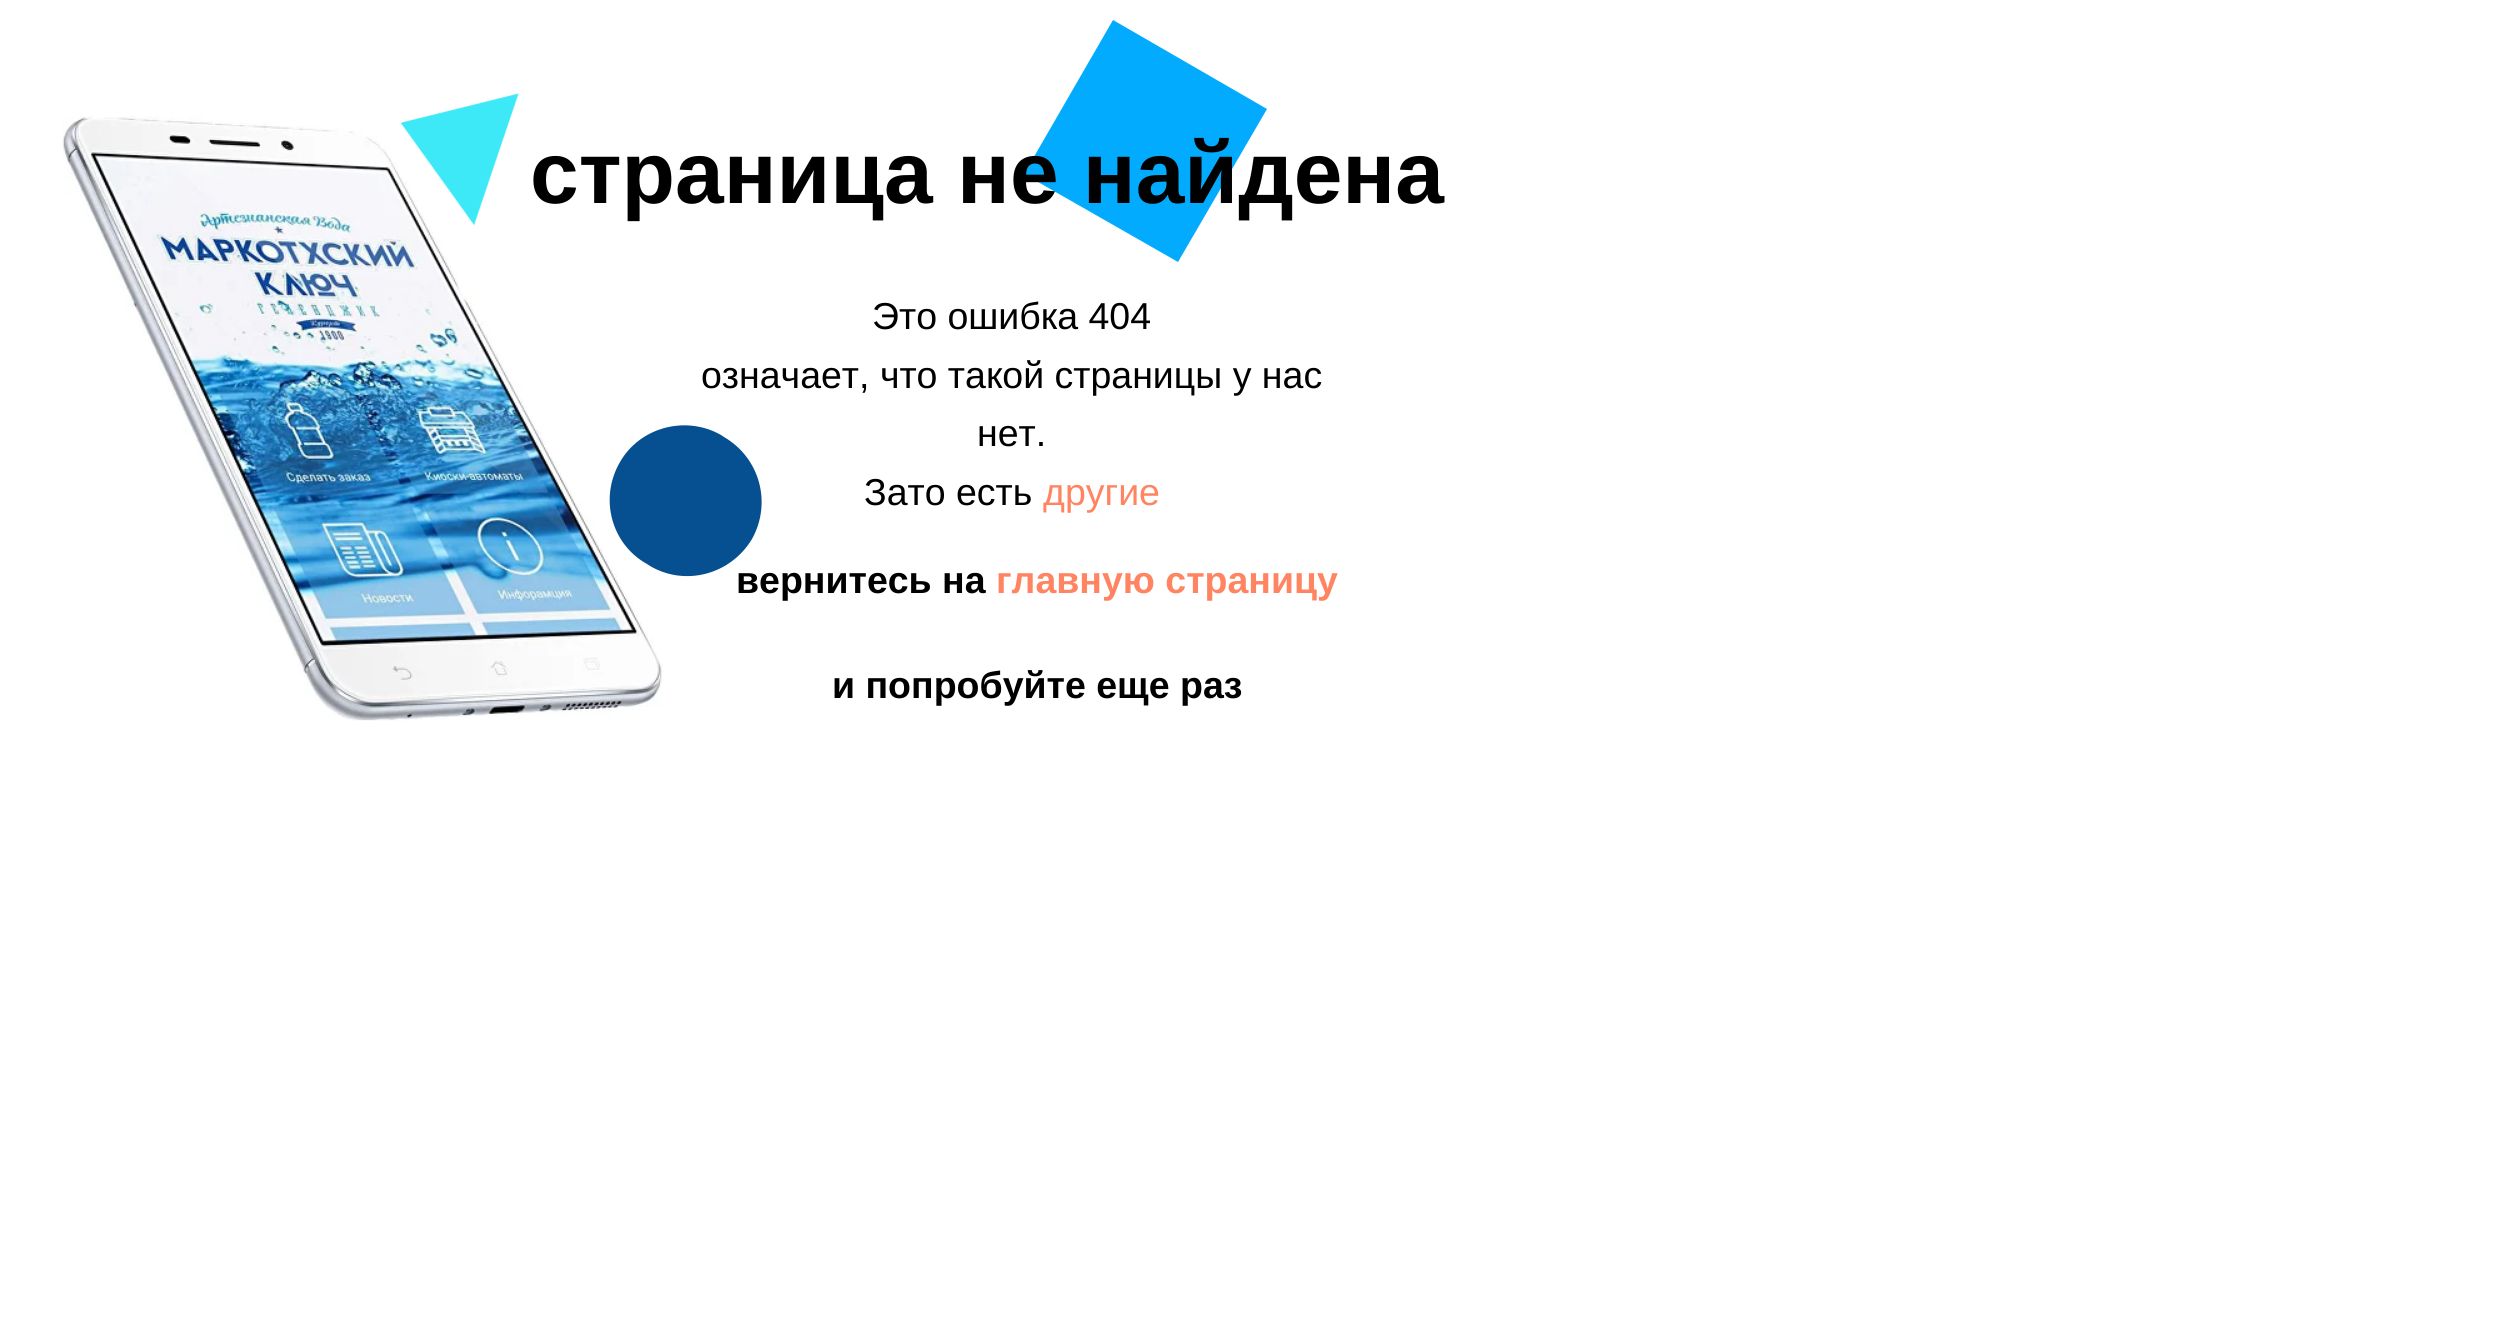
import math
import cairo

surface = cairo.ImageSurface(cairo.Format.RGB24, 2517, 1334)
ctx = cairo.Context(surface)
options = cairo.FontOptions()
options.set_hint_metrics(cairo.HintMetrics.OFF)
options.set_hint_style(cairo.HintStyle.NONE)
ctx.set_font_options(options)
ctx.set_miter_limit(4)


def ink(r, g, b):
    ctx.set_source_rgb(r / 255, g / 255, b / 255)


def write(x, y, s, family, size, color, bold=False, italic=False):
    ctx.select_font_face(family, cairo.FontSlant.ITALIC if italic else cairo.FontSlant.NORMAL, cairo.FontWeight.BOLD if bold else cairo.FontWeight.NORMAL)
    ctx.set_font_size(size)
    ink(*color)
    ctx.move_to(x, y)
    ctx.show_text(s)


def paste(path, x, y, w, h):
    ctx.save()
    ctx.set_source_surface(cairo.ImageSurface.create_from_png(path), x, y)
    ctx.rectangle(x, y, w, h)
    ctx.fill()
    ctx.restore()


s1 = dict(family="Liberation Sans", size=87.5, color=(0, 0, 0), bold=True)
s2 = dict(family="Liberation Sans", size=37.5, color=(0, 0, 0))
s3 = dict(family="Liberation Sans", size=37.5, color=(255, 133, 98))
s4 = dict(family="Liberation Sans", size=37.5, color=(0, 0, 0), bold=True)
s5 = dict(family="Liberation Sans", size=37.5, color=(255, 133, 98), bold=True)

ink(255, 255, 255)
ctx.paint()
paste("pic2.png", 62, 116, 601, 605)
paste("pic1.png", 400, 93, 119, 133)
ink(3, 171, 255)
ctx.new_path()
ctx.move_to(1113, 20)
ctx.line_to(1267, 109)
ctx.line_to(1178, 262)
ctx.line_to(1024, 174)
ctx.close_path()
ctx.fill()
write(530, 203, "страница не найдена", **s1)
ink(6, 80, 145)
ctx.new_path()
ctx.move_to(721, 435)
ctx.line_to(724, 437)
ctx.curve_to(760, 458, 772, 503, 752, 539)
ctx.curve_to(731, 574, 686, 587, 650, 566)
ctx.line_to(647, 564)
ctx.curve_to(611, 544, 599, 498, 620, 462)
ctx.curve_to(640, 427, 686, 415, 721, 435)
ctx.close_path()
ctx.fill()
write(872, 329, "Это ошибка 404", **s2)
write(701, 388, "означает, что такой страницы у нас", **s2)
write(977, 446, "нет.", **s2)
write(864, 505, "Зато есть", **s2)
write(1043, 505, "другие", **s3)
write(736, 593, "вернитесь на", **s4)
write(996, 593, "главную страницу", **s5)
write(832, 698, "и попробуйте еще раз", **s4)
surface.write_to_png("screenshot.png")
